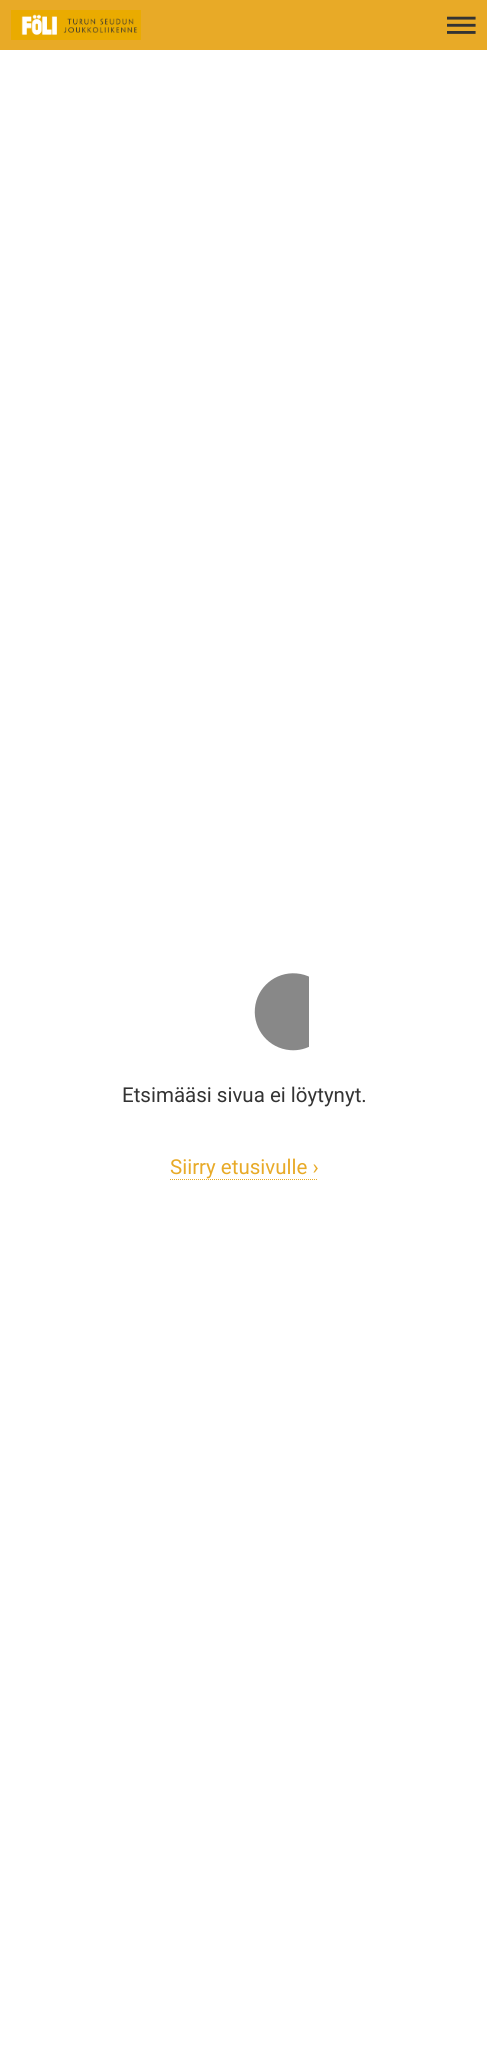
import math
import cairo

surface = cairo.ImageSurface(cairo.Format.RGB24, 487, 2055)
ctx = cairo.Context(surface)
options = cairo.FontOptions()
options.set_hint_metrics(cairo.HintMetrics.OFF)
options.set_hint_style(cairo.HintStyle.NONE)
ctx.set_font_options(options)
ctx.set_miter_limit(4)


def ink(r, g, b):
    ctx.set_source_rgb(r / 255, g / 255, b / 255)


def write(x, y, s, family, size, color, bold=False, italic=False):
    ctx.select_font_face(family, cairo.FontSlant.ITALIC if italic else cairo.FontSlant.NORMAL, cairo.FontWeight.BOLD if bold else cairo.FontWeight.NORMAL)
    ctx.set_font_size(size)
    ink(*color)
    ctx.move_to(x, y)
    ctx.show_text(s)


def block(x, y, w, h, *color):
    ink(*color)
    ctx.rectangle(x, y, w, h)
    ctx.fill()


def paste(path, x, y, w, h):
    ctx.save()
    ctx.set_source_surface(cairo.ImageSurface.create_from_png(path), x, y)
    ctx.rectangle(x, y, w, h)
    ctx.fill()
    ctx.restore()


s1 = dict(family="Roboto", size=20.5, color=(51, 51, 51))
s2 = dict(family="Roboto", size=20.5, color=(232, 170, 39))

ink(255, 255, 255)
ctx.paint()
block(0, 0, 487, 50, 232, 170, 39)
paste("pic1.png", 11, 10, 130, 30)
paste("pic2.png", 447, 16, 29, 18)
paste("pic3.png", 254, 973, 55, 78)
write(122, 1102, "Etsimääsi sivua ei löytynyt.", **s1)
write(170, 1174, "Siirry etusivulle ›", **s2)
ctx.new_path()
ctx.move_to(170, 1179.5)
ctx.line_to(317, 1179.5)
ctx.set_line_width(1)
ctx.set_dash([1, 1])
ctx.stroke()
surface.write_to_png("screenshot.png")
